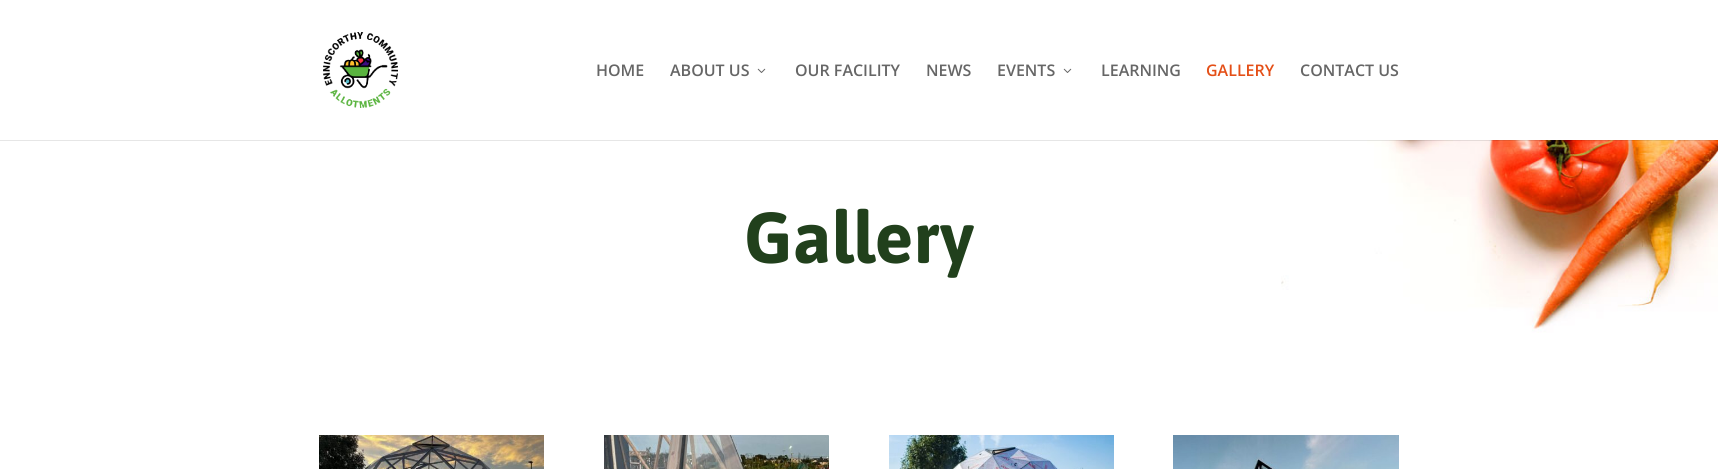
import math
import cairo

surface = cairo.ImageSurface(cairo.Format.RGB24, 1718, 469)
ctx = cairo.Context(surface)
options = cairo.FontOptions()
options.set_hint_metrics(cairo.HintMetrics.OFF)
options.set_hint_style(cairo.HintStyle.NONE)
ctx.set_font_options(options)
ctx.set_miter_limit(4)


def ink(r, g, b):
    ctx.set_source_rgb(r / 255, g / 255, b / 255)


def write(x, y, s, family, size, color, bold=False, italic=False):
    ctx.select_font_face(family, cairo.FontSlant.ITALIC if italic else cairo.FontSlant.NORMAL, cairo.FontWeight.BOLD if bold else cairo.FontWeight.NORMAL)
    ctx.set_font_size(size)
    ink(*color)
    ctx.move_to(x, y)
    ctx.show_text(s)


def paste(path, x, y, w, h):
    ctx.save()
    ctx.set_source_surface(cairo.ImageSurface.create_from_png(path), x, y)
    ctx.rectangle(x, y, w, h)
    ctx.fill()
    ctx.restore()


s1 = dict(family="Open Sans SemiBold", size=16, color=(102, 102, 102))
s2 = dict(family="Open Sans SemiBold", size=16, color=(228, 79, 23))
s3 = dict(family="Asap", size=72, color=(33, 64, 28), bold=True)

ink(255, 255, 255)
ctx.paint()
paste("pic3.png", 1281, 140, 437, 193)
ctx.set_source_rgba(0, 0, 0, 0.1)
ctx.rectangle(0, 140, 1718, 1)
ctx.fill()
paste("pic1.png", 323, 32, 75, 76)
write(596, 76, "HOME", **s1)
write(670, 76, "ABOUT US", **s1)
paste("pic2.png", 757, 68, 9, 5)
write(795, 76, "OUR FACILITY", **s1)
write(926, 76, "NEWS", **s1)
write(997, 76, "EVENTS", **s1)
paste("pic2.png", 1063, 68, 9, 5)
write(1101, 76, "LEARNING", **s1)
write(1206, 76, "GALLERY", **s2)
write(1300, 76, "CONTACT US", **s1)
write(744, 263, "Gallery", **s3)
paste("pic4.png", 319, 435, 225, 34)
paste("pic5.png", 604, 435, 225, 34)
paste("pic6.png", 889, 435, 225, 34)
paste("pic7.png", 1173, 435, 226, 34)
surface.write_to_png("screenshot.png")
